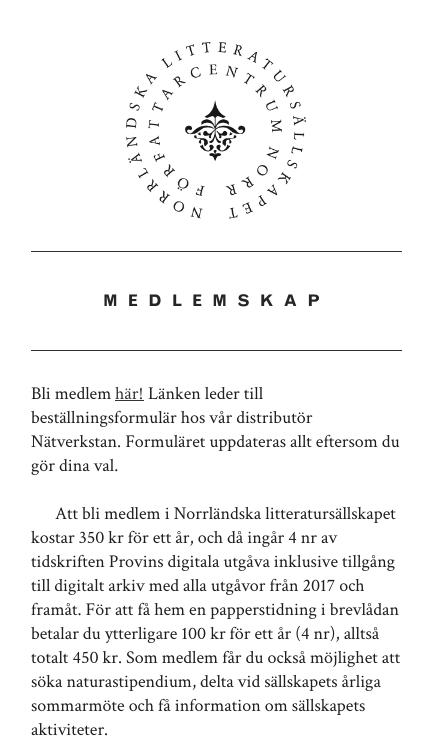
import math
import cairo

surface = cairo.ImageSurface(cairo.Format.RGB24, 433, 749)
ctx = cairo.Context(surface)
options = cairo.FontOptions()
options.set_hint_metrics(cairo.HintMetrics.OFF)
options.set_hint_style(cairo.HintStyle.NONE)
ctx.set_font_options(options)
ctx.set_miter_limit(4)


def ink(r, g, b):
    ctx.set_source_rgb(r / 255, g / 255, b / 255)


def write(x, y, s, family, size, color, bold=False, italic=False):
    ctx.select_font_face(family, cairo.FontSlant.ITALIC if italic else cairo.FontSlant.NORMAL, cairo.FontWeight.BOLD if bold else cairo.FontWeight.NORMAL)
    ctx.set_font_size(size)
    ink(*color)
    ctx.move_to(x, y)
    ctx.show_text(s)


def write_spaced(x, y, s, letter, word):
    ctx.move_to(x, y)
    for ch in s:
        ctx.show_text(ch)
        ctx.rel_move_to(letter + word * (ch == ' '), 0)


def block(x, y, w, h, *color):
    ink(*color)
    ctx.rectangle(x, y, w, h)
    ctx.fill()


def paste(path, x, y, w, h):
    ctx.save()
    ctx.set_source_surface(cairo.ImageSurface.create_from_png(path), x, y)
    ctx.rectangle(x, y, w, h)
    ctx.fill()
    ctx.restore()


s1 = dict(family="Crimson Text", size=18, color=(30, 30, 30))
s2 = dict(family="Crimson Text", size=18, color=(51, 51, 51))

ink(255, 255, 255)
ctx.paint()
paste("pic1.png", 126, 42, 180, 177)
block(31, 251, 371, 1, 48, 48, 48)
block(31, 350, 371, 1, 48, 48, 48)
ctx.select_font_face("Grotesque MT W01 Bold", cairo.FontSlant.NORMAL, cairo.FontWeight.BOLD)
ctx.set_font_size(16)
ink(37, 37, 37)
write_spaced(103, 306, "MEDLEMSKAP", 10, 0)
write(31, 399, "Bli medlem", **s1)
write(115, 399, "här!", **s2)
block(115, 400, 29, 1, 51, 51, 51)
write(148, 399, "Länken leder till", **s1)
write(31, 423, "beställningsformulär hos vår distributör", **s1)
write(31, 447, "Nätverkstan. Formuläret uppdateras allt eftersom du", **s1)
write(31, 471, "gör dina val.", **s1)
write(55, 519, "Att bli medlem i Norrländska litteratursällskapet", **s1)
write(31, 543, "kostar 350 kr för ett år, och då ingår 4 nr av", **s1)
write(31, 567, "tidskriften Provins digitala utgåva inklusive tillgång", **s1)
write(31, 591, "till digitalt arkiv med alla utgåvor från 2017 och", **s1)
write(31, 615, "framåt. För att få hem en papperstidning i brevlådan", **s1)
write(31, 639, "betalar du ytterligare 100 kr för ett år (4 nr), alltså", **s1)
write(31, 663, "totalt 450 kr. Som medlem får du också möjlighet att", **s1)
write(31, 687, "söka naturastipendium, delta vid sällskapets årliga", **s1)
write(31, 711, "sommarmöte och få information om sällskapets", **s1)
write(31, 735, "aktiviteter.", **s1)
surface.write_to_png("screenshot.png")
